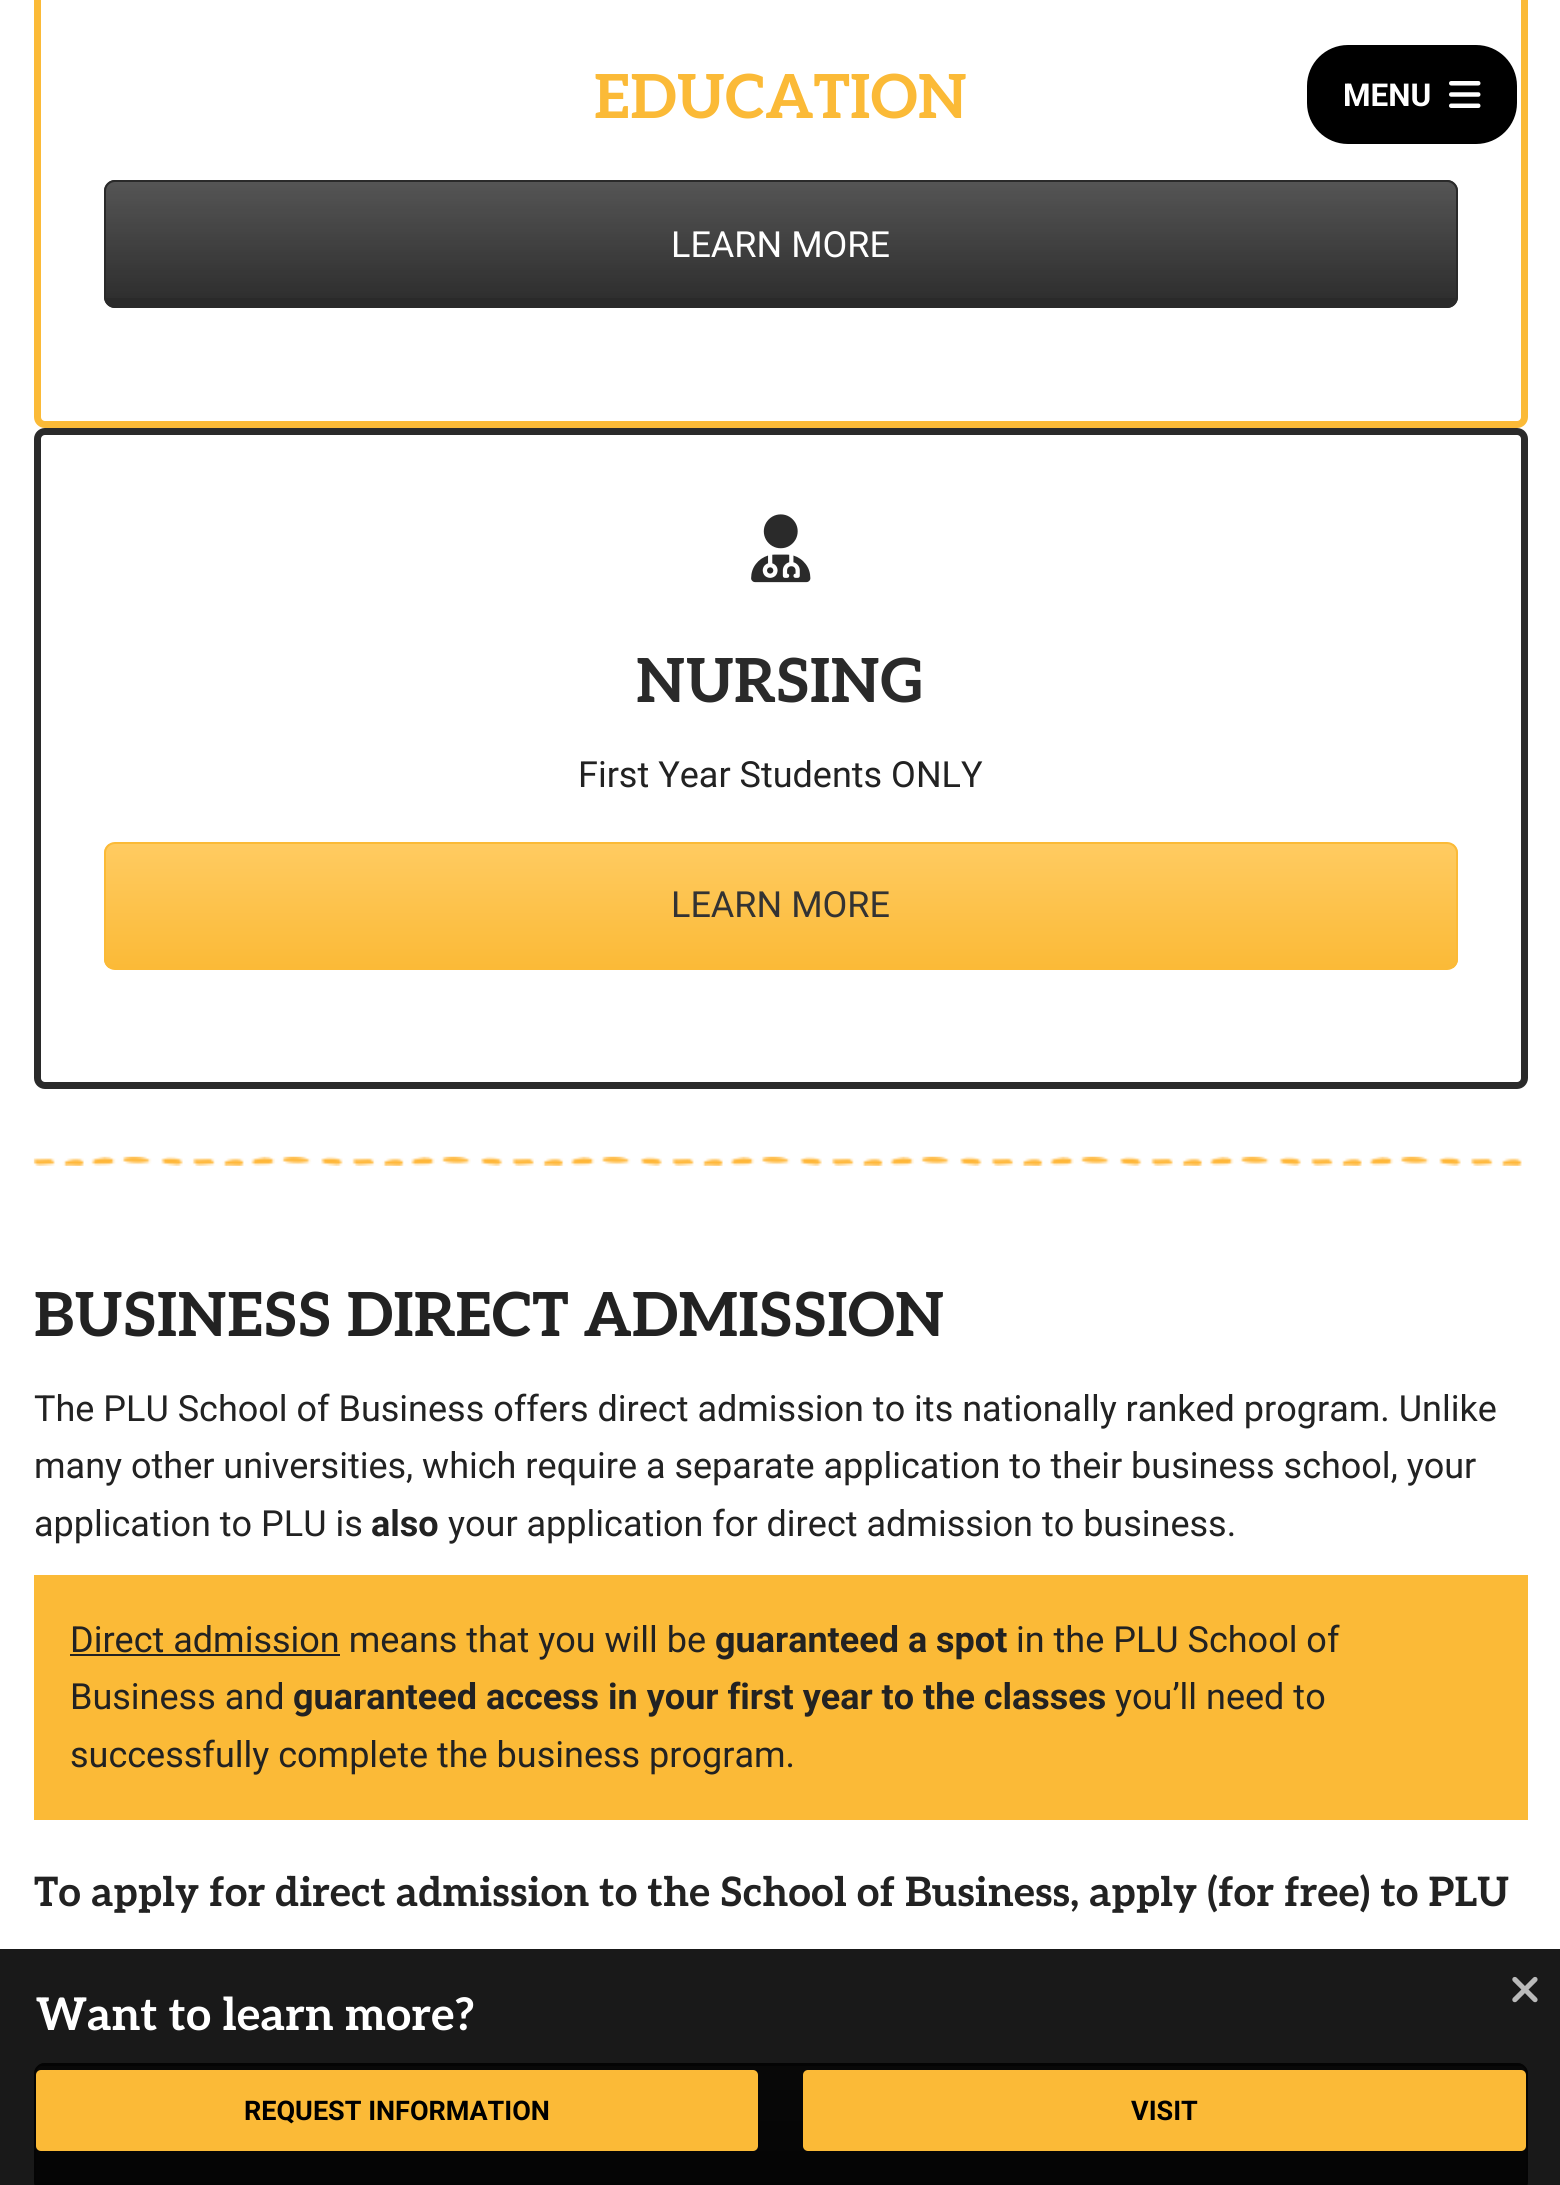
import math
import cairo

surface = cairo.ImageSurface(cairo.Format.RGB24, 1560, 2185)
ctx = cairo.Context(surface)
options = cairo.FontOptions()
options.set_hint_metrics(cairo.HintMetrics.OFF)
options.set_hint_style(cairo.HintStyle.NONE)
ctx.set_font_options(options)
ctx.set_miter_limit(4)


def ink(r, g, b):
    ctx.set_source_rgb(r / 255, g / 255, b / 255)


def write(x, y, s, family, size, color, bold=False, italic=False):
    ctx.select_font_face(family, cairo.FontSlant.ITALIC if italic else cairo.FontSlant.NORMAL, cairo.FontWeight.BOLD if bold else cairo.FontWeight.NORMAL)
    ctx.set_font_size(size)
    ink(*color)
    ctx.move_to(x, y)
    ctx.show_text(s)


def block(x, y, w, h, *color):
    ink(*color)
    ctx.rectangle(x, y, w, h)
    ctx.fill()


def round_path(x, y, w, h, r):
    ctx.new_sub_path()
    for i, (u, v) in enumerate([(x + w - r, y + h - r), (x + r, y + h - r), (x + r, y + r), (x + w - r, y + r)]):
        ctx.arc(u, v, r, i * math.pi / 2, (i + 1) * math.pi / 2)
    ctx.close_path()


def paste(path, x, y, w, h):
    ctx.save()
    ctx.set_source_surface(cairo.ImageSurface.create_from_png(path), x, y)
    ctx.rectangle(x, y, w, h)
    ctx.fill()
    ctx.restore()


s1 = dict(family="Aleo", size=60.75, color=(251, 186, 55), bold=True)
s2 = dict(family="Roboto", size=36, color=(255, 255, 255))
s3 = dict(family="Aleo", size=60.75, color=(42, 42, 42), bold=True)
s4 = dict(family="Roboto", size=36, color=(34, 34, 34))
s5 = dict(family="Roboto", size=36, color=(51, 51, 51))
s6 = dict(family="Aleo", size=60.75, color=(34, 34, 34), bold=True)
s7 = dict(family="Roboto", size=36, color=(34, 34, 34), bold=True)
s8 = dict(family="Aleo", size=40.5, color=(34, 34, 34), bold=True)
s9 = dict(family="Roboto", size=31.5, color=(255, 255, 255), bold=True)
s10 = dict(family="Aleo", size=45, color=(255, 255, 255), bold=True)
s11 = dict(family="Roboto", size=27, color=(0, 0, 0), bold=True)

ink(255, 255, 255)
ctx.paint()
round_path(37.5, -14.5, 1487, 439, 7.5)
ink(251, 186, 55)
ctx.set_line_width(7)
ctx.stroke()
write(594, 118, "EDUCATION", **s1)
ink(42, 42, 42)
round_path(104, 180, 1354, 128, 11)
ctx.fill()
ctx.save()
round_path(104, 180, 1354, 128, 11)
ctx.clip()
gradient = cairo.LinearGradient(781, 182, 781, 306)
gradient.add_color_stop_rgba(0, 1, 1, 1, 0.2)
gradient.add_color_stop_rgba(1, 1, 1, 1, 0.01)
ctx.set_source(gradient)
ctx.rectangle(104, 182, 1354, 116)
ctx.fill()
ctx.restore()
round_path(105, 181, 1352, 126, 10)
ctx.set_line_width(2)
ctx.stroke()
write(671, 257, "LEARN MORE", **s2)
round_path(37.5, 431.5, 1487, 654, 7.5)
ink(42, 42, 42)
ctx.set_line_width(7)
ctx.stroke()
paste("pic1.png", 751, 514, 60, 69)
write(636, 702, "NURSING", **s3)
write(578, 787, "First Year Students ONLY", **s4)
ctx.save()
round_path(104, 842, 1354, 128, 11)
ctx.clip()
gradient = cairo.LinearGradient(781, 844, 781, 968)
gradient.add_color_stop_rgba(0, 1, 0.796, 0.38, 1)
gradient.add_color_stop_rgba(1, 0.984, 0.729, 0.216, 1)
ctx.set_source(gradient)
ctx.rectangle(104, 844, 1354, 124)
ctx.fill()
ctx.restore()
round_path(105, 843, 1352, 126, 10)
ink(251, 186, 55)
ctx.set_line_width(2)
ctx.stroke()
write(671, 917, "LEARN MORE", **s5)
paste("pic2.png", 33, 1156, 1489, 10)
write(34, 1336, "BUSINESS DIRECT ADMISSION", **s6)
write(34, 1421, "The PLU School of Business offers direct admission to its nationally ranked program. Unlike", **s4)
write(34, 1478, "many other universities, which require a separate application to their business school, your", **s4)
write(34, 1536, "application to PLU is", **s4)
write(371, 1536, "also", **s7)
write(448, 1536, "your application for direct admission to business.", **s4)
block(34, 1575, 1494, 245, 251, 186, 55)
block(70, 1654, 270, 2, 34, 34, 34)
write(70, 1652, "Direct admission means that you will be", **s4)
write(715, 1652, "guaranteed a spot", **s7)
write(1016, 1652, "in the PLU School of", **s4)
write(70, 1709, "Business and", **s4)
write(293, 1709, "guaranteed access in your first year to the classes", **s7)
write(1115, 1709, "you’ll need to", **s4)
write(70, 1767, "successfully complete the business program.", **s4)
write(34, 1906, "To apply for direct admission to the School of Business, apply (for free) to PLU", **s8)
ink(42, 42, 42)
round_path(34, 2063, 1494, 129, 11)
ctx.fill()
ctx.save()
round_path(34, 2063, 1494, 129, 11)
ctx.clip()
gradient = cairo.LinearGradient(781, 2066, 781, 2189)
gradient.add_color_stop_rgba(0, 1, 1, 1, 0.2)
gradient.add_color_stop_rgba(1, 1, 1, 1, 0.01)
ctx.set_source(gradient)
ctx.rectangle(34, 2066, 1494, 116)
ctx.fill()
ctx.restore()
round_path(35, 2064, 1492, 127, 10)
ctx.stroke()
ink(0, 0, 0)
round_path(1309.5, 47.5, 205, 94, 38.5)
ctx.fill_preserve()
ctx.set_line_width(5)
ctx.stroke()
write(1343, 106, "MENU", **s9)
paste("pic3.png", 1449, 81, 32, 27)
ctx.set_source_rgba(0, 0, 0, 0.9)
ctx.rectangle(0, 1949, 1560, 236)
ctx.fill()
paste("pic4.png", 1512, 1976, 26, 27)
write(36, 2030, "Want to learn more?", **s10)
ink(251, 186, 55)
round_path(36, 2070, 722, 81, 5)
ctx.fill()
write(244, 2120, "REQUEST INFORMATION", **s11)
ink(251, 186, 55)
round_path(803, 2070, 723, 81, 5)
ctx.fill()
write(1131, 2120, "VISIT", **s11)
surface.write_to_png("screenshot.png")
